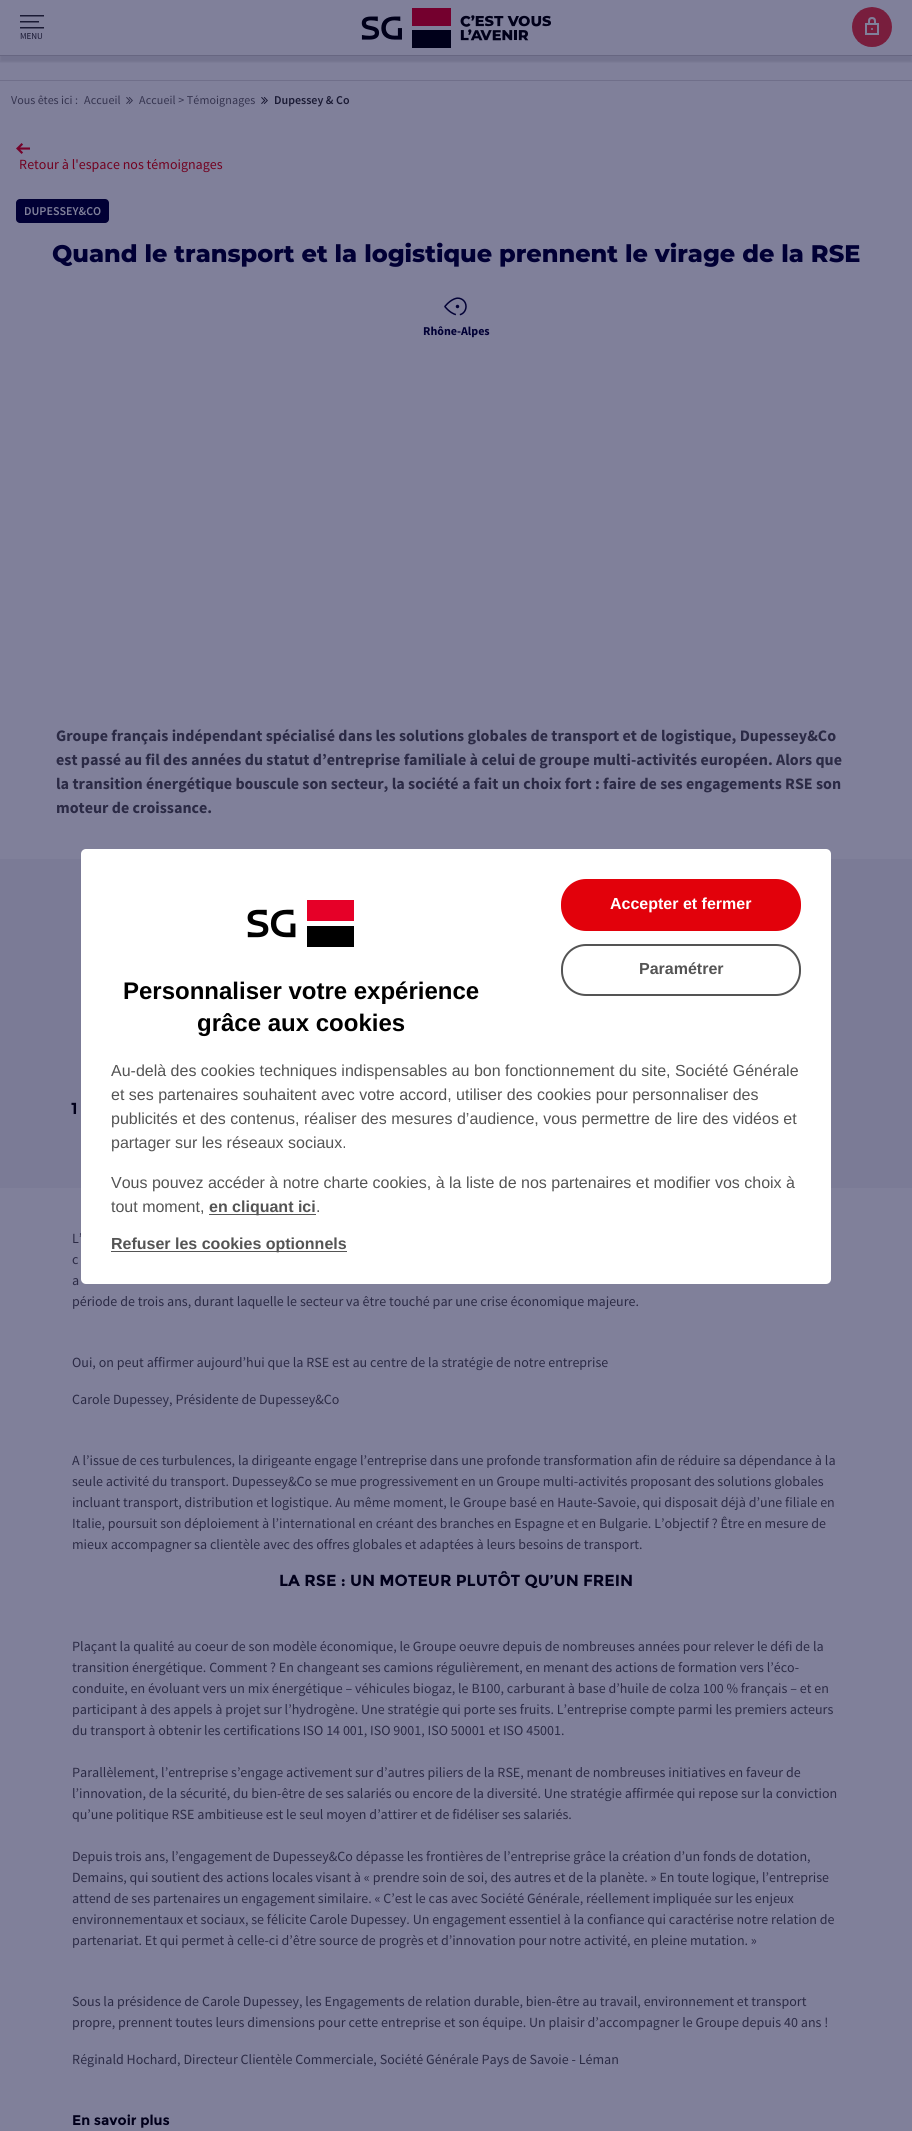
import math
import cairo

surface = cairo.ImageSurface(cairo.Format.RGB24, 912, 2131)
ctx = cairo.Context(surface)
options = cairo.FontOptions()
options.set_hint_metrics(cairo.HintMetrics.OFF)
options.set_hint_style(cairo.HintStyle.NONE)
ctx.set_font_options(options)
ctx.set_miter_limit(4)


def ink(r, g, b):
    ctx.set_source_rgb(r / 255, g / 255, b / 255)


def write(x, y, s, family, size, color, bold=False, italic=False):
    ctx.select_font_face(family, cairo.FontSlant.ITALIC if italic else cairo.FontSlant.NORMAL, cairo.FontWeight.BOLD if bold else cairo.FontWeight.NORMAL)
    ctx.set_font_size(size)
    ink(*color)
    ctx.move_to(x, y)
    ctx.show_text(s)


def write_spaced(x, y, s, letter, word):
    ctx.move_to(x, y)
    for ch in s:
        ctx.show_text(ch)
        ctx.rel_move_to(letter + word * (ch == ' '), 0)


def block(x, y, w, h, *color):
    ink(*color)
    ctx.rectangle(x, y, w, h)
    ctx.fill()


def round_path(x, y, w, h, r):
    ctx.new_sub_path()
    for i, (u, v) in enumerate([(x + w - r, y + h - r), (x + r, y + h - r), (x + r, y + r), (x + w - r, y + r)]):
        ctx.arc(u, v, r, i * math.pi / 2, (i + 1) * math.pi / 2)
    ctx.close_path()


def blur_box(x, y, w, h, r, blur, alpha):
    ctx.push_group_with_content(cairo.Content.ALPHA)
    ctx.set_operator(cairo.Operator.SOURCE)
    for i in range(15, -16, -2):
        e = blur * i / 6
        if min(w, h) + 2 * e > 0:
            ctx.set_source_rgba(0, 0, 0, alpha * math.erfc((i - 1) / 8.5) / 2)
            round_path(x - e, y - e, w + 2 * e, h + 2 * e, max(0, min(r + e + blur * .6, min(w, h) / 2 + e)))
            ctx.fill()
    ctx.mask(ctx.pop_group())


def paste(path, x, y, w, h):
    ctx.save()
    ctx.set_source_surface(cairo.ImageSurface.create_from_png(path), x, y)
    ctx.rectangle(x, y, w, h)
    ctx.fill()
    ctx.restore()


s1 = dict(family="Source Sans Pro", size=12, color=(52, 51, 78))
s2 = dict(family="Source Sans Pro SemiBold", size=12, color=(26, 26, 52))
s3 = dict(family="Source Sans Pro", size=14, color=(114, 1, 32))
s4 = dict(family="Source Sans Pro SemiBold", size=12, color=(128, 128, 154))
s5 = dict(family="Montserrat ExtraBold", size=24, color=(1, 0, 53))
s6 = dict(family="Source Sans Pro", size=12, color=(1, 0, 53), bold=True)
s7 = dict(family="Source Sans Pro", size=16, color=(43, 42, 69), bold=True)
s8 = dict(family="Montserrat", size=16, color=(1, 0, 27), bold=True)
s9 = dict(family="Source Sans Pro", size=14, color=(43, 42, 69))
s10 = dict(family="Montserrat", size=14, color=(1, 0, 27), bold=True)
s11 = dict(family="Liberation Sans", size=16, color=(255, 255, 255), bold=True)
s12 = dict(family="Liberation Sans", size=16, color=(84, 84, 84), bold=True)
s13 = dict(family="Liberation Sans", size=24, color=(0, 0, 0), bold=True)
s14 = dict(family="Liberation Sans", size=16, color=(84, 84, 84))

ink(128, 128, 154)
ctx.paint()
ctx.save()
ctx.rectangle(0, 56, 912, 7)
ctx.clip()
ink(1, 0, 27)
blur_box(0, 6, 912, 56, 0, 1, 0.1)
ctx.restore()
block(0, 55, 912, 1, 103, 102, 129)
paste("pic1.png", 20, 15, 24, 24)
paste("pic2.png", 361, 8, 190, 40)
paste("pic3.png", 852, 7, 40, 40)
block(0, 80, 912, 1, 112, 111, 138)
write(11, 104, "Vous êtes ici :", **s1)
write_spaced(84, 104, "Accueil", 0.1, 0)
paste("pic4.png", 126, 97, 7, 7)
write_spaced(139, 104, "Accueil > Témoignages", 0.1, 0)
paste("pic5.png", 261, 97, 7, 7)
write(274, 104, "Dupessey & Co", **s2)
paste("pic6.png", 16, 143, 14, 11)
write(19, 169, "Retour à l'espace nos témoignages", **s3)
ink(1, 0, 53)
round_path(16, 199, 93, 24, 4)
ctx.fill()
write(24, 215, "DUPESSEY&CO", **s4)
write(52, 262, "Quand le transport et la logistique prennent le virage de la RSE", **s5)
paste("pic7.png", 444, 297, 23, 19)
write(423, 335, "Rhône-Alpes", **s6)
write(56, 741, "Groupe français indépendant spécialisé dans les solutions globales de transport et de logistique, Dupessey&Co", **s7)
write(56, 765, "est passé au fil des années du statut d’entreprise familiale à celui de groupe multi-activités européen. Alors que", **s7)
write(56, 789, "la transition énergétique bouscule son secteur, la société a fait un choix fort : faire de ses engagements RSE son", **s7)
write(56, 813, "moteur de croissance.", **s7)
block(0, 859, 912, 329, 123, 123, 150)
write(71, 1114, "1", **s8)
write(72, 1243, "L’", **s9)
write(72, 1264, "c", **s9)
write(72, 1285, "a", **s9)
write(72, 1306, "période de trois ans, durant laquelle le secteur va être touché par une crise économique majeure.", **s9)
write(72, 1367, "Oui, on peut affirmer aujourd’hui que la RSE est au centre de la stratégie de notre entreprise", **s9)
write(72, 1404, "Carole Dupessey, Présidente de Dupessey&Co", **s9)
write(72, 1465, "A l’issue de ces turbulences, la dirigeante engage l’entreprise dans une profonde transformation afin de réduire sa dépendance à la", **s9)
write(72, 1486, "seule activité du transport. Dupessey&Co se mue progressivement en un Groupe multi-activités proposant des solutions globales", **s9)
write(72, 1507, "incluant transport, distribution et logistique. Au même moment, le Groupe basé en Haute-Savoie, qui disposait déjà d’une filiale en", **s9)
write(72, 1528, "Italie, poursuit son déploiement à l’international en créant des branches en Espagne et en Bulgarie. L’objectif ? Être en mesure de", **s9)
write(72, 1549, "mieux accompagner sa clientèle avec des offres globales et adaptées à leurs besoins de transport.", **s9)
write(279, 1586, "LA RSE : UN MOTEUR PLUTÔT QU’UN FREIN", **s8)
write(72, 1651, "Plaçant la qualité au coeur de son modèle économique, le Groupe oeuvre depuis de nombreuses années pour relever le défi de la", **s9)
write(72, 1672, "transition énergétique. Comment ? En changeant ses camions régulièrement, en menant des actions de formation vers l’éco-", **s9)
write(72, 1693, "conduite, en évoluant vers un mix énergétique – véhicules biogaz, le B100, carburant à base d’huile de colza 100 % français – et en", **s9)
write(72, 1714, "participant à des appels à projet sur l’hydrogène. Une stratégie qui porte ses fruits. L’entreprise compte parmi les premiers acteurs", **s9)
write(72, 1735, "du transport à obtenir les certifications ISO 14 001, ISO 9001, ISO 50001 et ISO 45001.", **s9)
write(72, 1777, "Parallèlement, l’entreprise s’engage activement sur d’autres piliers de la RSE, menant de nombreuses initiatives en faveur de", **s9)
write(72, 1798, "l’innovation, de la sécurité, du bien-être de ses salariés ou encore de la diversité. Une stratégie affirmée qui repose sur la conviction", **s9)
write(72, 1819, "qu’une politique RSE ambitieuse est le seul moyen d’attirer et de fidéliser ses salariés.", **s9)
write(72, 1861, "Depuis trois ans, l’engagement de Dupessey&Co dépasse les frontières de l’entreprise grâce la création d’un fonds de dotation,", **s9)
write(72, 1882, "Demains, qui soutient des actions locales visant à « prendre soin de soi, des autres et de la planète. » En toute logique, l’entreprise", **s9)
write(72, 1903, "attend de ses partenaires un engagement similaire. « C’est le cas avec Société Générale, réellement impliquée sur les enjeux", **s9)
write(72, 1924, "environnementaux et sociaux, se félicite Carole Dupessey. Un engagement essentiel à la confiance qui caractérise notre relation de", **s9)
write(72, 1945, "partenariat. Et qui permet à celle-ci d’être source de progrès et d’innovation pour notre activité, en pleine mutation. »", **s9)
write(72, 2006, "Sous la présidence de Carole Dupessey, les Engagements de relation durable, bien-être au travail, environnement et transport", **s9)
write(72, 2027, "propre, prennent toutes leurs dimensions pour cette entreprise et son équipe. Un plaisir d’accompagner le Groupe depuis 40 ans !", **s9)
write(72, 2064, "Réginald Hochard, Directeur Clientèle Commerciale, Société Générale Pays de Savoie - Léman", **s9)
write(72, 2125, "En savoir plus", **s10)
ink(255, 255, 255)
round_path(81, 849, 750, 435, 5)
ctx.fill()
ink(226, 1, 11)
round_path(562, 880, 238, 50, 24)
ctx.fill_preserve()
ctx.stroke()
write(610, 909, "Accepter et fermer", **s11)
round_path(562, 945, 238, 50, 24)
ink(84, 84, 84)
ctx.stroke()
write(639, 974, "Paramétrer", **s12)
block(111, 1251, 236, 1, 84, 84, 84)
write(111, 1249, "Refuser les cookies optionnels", **s12)
paste("pic8.png", 247, 900, 107, 47)
write(123, 999, "Personnaliser votre expérience", **s13)
write(197, 1031, "grâce aux cookies", **s13)
write(111, 1076, "Au-delà des cookies techniques indispensables au bon fonctionnement du site, Société Générale", **s14)
write(111, 1100, "et ses partenaires souhaitent avec votre accord, utiliser des cookies pour personnaliser des", **s14)
write(111, 1124, "publicités et des contenus, réaliser des mesures d’audience, vous permettre de lire des vidéos et", **s14)
write(111, 1148, "partager sur les réseaux sociaux.", **s14)
write(111, 1188, "Vous pouvez accéder à notre charte cookies, à la liste de nos partenaires et modifier vos choix à", **s14)
write(111, 1212, "tout moment,", **s14)
block(209, 1214, 107, 1, 84, 84, 84)
write(209, 1212, "en cliquant ici", **s12)
write(316, 1212, ".", **s14)
surface.write_to_png("screenshot.png")
